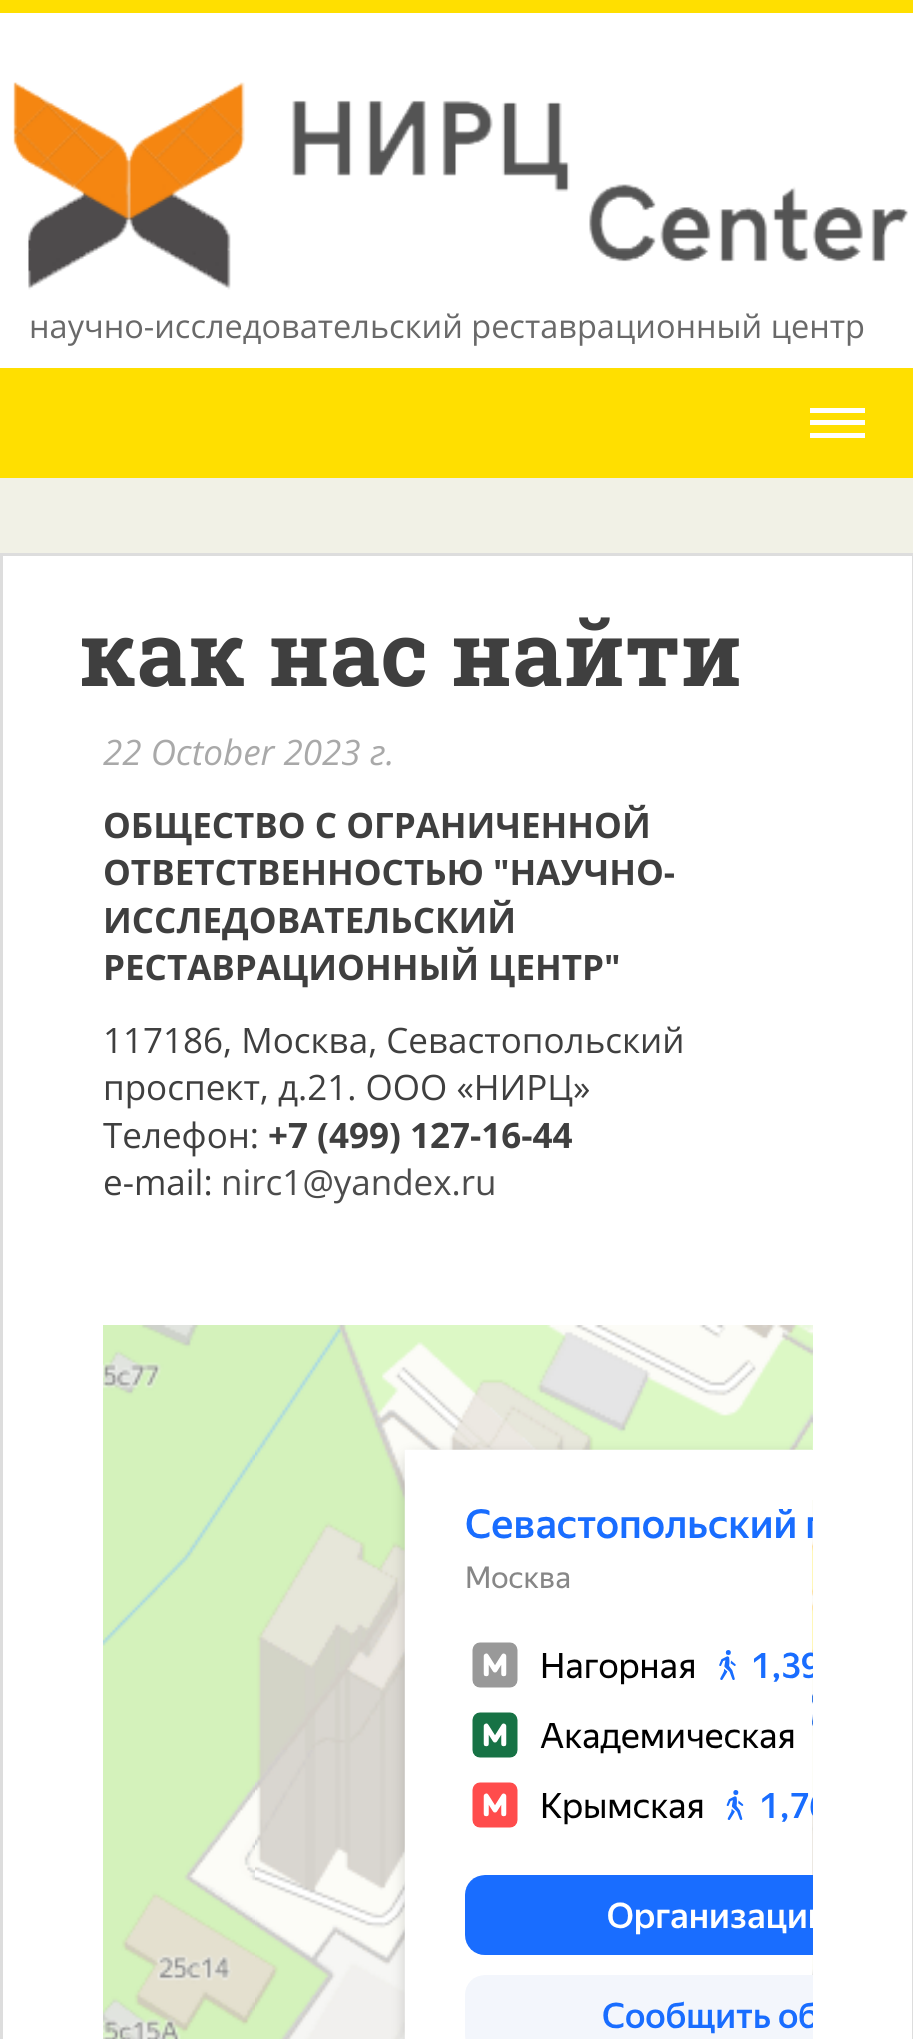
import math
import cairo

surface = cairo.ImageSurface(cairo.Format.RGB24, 913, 2039)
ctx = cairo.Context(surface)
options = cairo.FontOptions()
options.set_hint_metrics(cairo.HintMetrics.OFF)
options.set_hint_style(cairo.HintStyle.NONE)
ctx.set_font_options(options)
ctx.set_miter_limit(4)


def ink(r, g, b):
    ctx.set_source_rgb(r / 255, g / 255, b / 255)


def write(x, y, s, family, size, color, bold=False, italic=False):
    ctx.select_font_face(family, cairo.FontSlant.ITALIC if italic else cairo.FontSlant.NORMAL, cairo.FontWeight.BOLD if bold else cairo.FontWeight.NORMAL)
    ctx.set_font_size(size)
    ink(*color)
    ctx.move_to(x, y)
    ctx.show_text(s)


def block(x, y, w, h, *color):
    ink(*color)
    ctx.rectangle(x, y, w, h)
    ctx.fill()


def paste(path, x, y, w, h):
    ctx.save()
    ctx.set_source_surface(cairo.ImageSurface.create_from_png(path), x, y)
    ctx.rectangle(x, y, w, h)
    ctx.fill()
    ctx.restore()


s1 = dict(family="Open Sans", size=32.5, color=(105, 105, 105))
s2 = dict(family="Roboto Slab", size=90, color=(63, 63, 63), bold=True)
s3 = dict(family="Open Sans", size=35, color=(169, 169, 169), italic=True)
s4 = dict(family="Open Sans", size=35, color=(63, 63, 63), bold=True)
s5 = dict(family="Open Sans", size=35, color=(63, 63, 63))
s6 = dict(family="Open Sans", size=35, color=(76, 76, 76))

ink(241, 241, 230)
ctx.paint()
block(0, 13, 913, 355, 255, 255, 255)
block(0, 0, 913, 13, 255, 223, 0)
paste("pic1.png", 13, 82, 896, 208)
write(29, 338, "научно-исследовательский реставрационный центр", **s1)
block(0, 368, 913, 110, 255, 223, 0)
block(810, 408, 55, 5, 255, 255, 255)
block(810, 420, 55, 5, 255, 255, 255)
block(810, 433, 55, 5, 255, 255, 255)
ctx.rectangle(1.5, 554.5, 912, 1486)
ctx.fill_preserve()
ink(221, 221, 221)
ctx.set_line_width(3)
ctx.stroke()
write(78, 686, "как нас найти", **s2)
write(103, 765, "22 October 2023 г.", **s3)
write(103, 838, "ОБЩЕСТВО С ОГРАНИЧЕННОЙ", **s4)
write(103, 885, "ОТВЕТСТВЕННОСТЬЮ \"НАУЧНО-", **s4)
write(103, 933, "ИССЛЕДОВАТЕЛЬСКИЙ", **s4)
write(103, 980, "РЕСТАВРАЦИОННЫЙ ЦЕНТР\"", **s4)
write(103, 1053, "117186, Москва, Севастопольский", **s5)
write(103, 1100, "проспект, д.21. ООО «НИРЦ»", **s5)
write(103, 1148, "Телефон:", **s5)
write(268, 1148, "+7 (499) 127-16-44", **s4)
write(103, 1195, "e-mail:", **s5)
write(221, 1195, "nirc1@yandex.ru", **s6)
paste("pic2.png", 103, 1325, 710, 714)
surface.write_to_png("screenshot.png")
